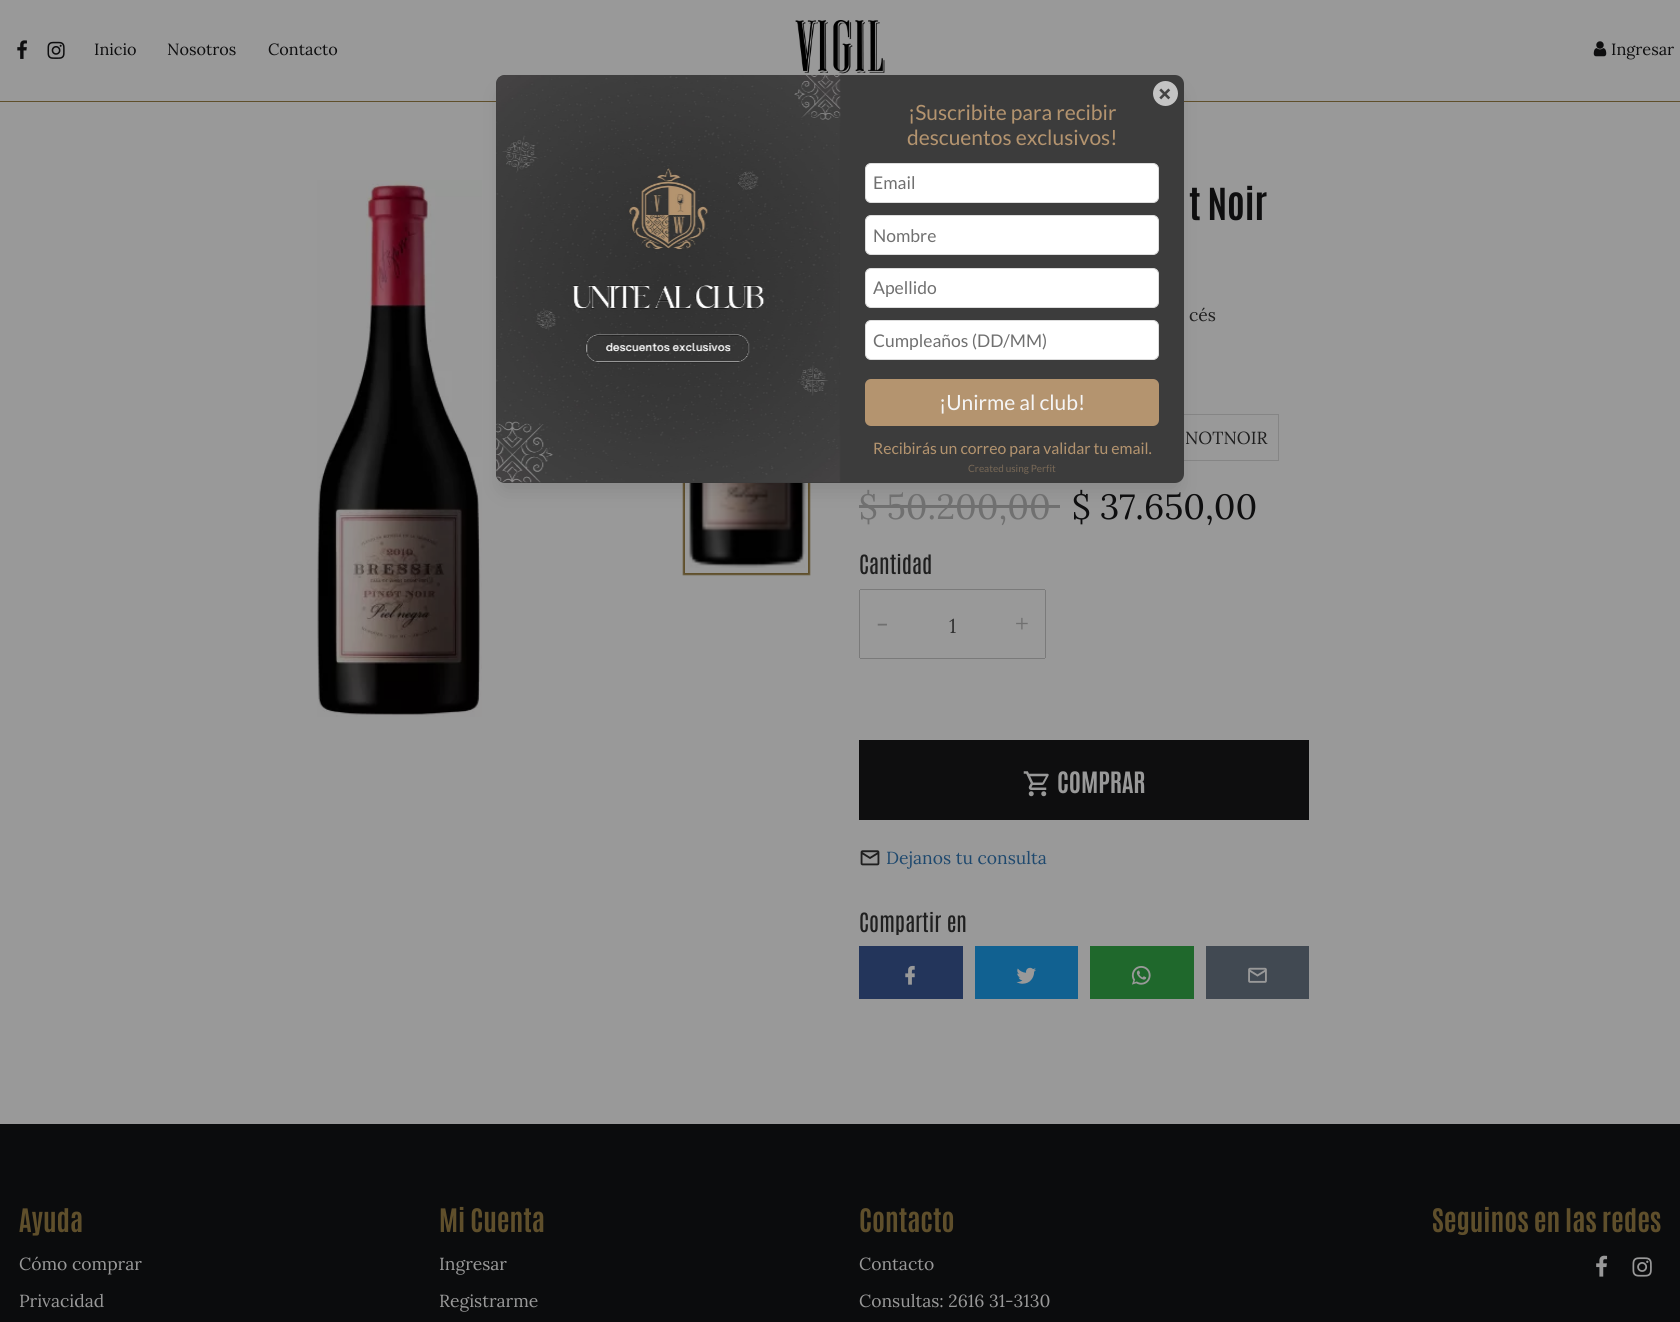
import math
import cairo

surface = cairo.ImageSurface(cairo.Format.RGB24, 1680, 1322)
ctx = cairo.Context(surface)
options = cairo.FontOptions()
options.set_hint_metrics(cairo.HintMetrics.OFF)
options.set_hint_style(cairo.HintStyle.NONE)
ctx.set_font_options(options)
ctx.set_miter_limit(4)


def ink(r, g, b):
    ctx.set_source_rgb(r / 255, g / 255, b / 255)


def write(x, y, s, family, size, color, bold=False, italic=False):
    ctx.select_font_face(family, cairo.FontSlant.ITALIC if italic else cairo.FontSlant.NORMAL, cairo.FontWeight.BOLD if bold else cairo.FontWeight.NORMAL)
    ctx.set_font_size(size)
    ink(*color)
    ctx.move_to(x, y)
    ctx.show_text(s)


def block(x, y, w, h, *color):
    ink(*color)
    ctx.rectangle(x, y, w, h)
    ctx.fill()


def round_path(x, y, w, h, r):
    ctx.new_sub_path()
    for i, (u, v) in enumerate([(x + w - r, y + h - r), (x + r, y + h - r), (x + r, y + r), (x + w - r, y + r)]):
        ctx.arc(u, v, r, i * math.pi / 2, (i + 1) * math.pi / 2)
    ctx.close_path()


def blur_box(x, y, w, h, r, blur, alpha):
    ctx.push_group_with_content(cairo.Content.ALPHA)
    ctx.set_operator(cairo.Operator.SOURCE)
    for i in range(15, -16, -2):
        e = blur * i / 6
        if min(w, h) + 2 * e > 0:
            ctx.set_source_rgba(0, 0, 0, alpha * math.erfc((i - 1) / 8.5) / 2)
            round_path(x - e, y - e, w + 2 * e, h + 2 * e, max(0, min(r + e + blur * .6, min(w, h) / 2 + e)))
            ctx.fill()
    ctx.mask(ctx.pop_group())


def paste(path, x, y, w, h):
    ctx.save()
    ctx.set_source_surface(cairo.ImageSurface.create_from_png(path), x, y)
    ctx.rectangle(x, y, w, h)
    ctx.fill()
    ctx.restore()


s1 = dict(family="Lora", size=16.25, color=(14, 14, 15))
s2 = dict(family="DejaVu Sans Mono", size=22.5, color=(68, 68, 68), bold=True)
s3 = dict(family="Lato", size=21, color=(180, 148, 111))
s4 = dict(family="Lato", size=17.5, color=(112, 112, 112))
s5 = dict(family="Lato", size=21, color=(245, 245, 245))
s6 = dict(family="Lato", size=15.75, color=(180, 148, 111))
s7 = dict(family="Lato", size=10, color=(120, 104, 86))
s8 = dict(family="Antonio", size=37.5, color=(14, 14, 15), bold=True)
s9 = dict(family="Lora", size=17.5, color=(31, 31, 31))
s10 = dict(family="Lora", size=35, color=(112, 112, 112))
s11 = dict(family="Lora", size=35, color=(14, 14, 15))
s12 = dict(family="Antonio", size=22.5, color=(31, 31, 31))
s13 = dict(family="Lora", size=26, color=(112, 112, 112))
s14 = dict(family="Lora", size=20, color=(51, 51, 51))
s15 = dict(family="Antonio", size=25, color=(153, 153, 153), bold=True)
s16 = dict(family="Lora", size=17.5, color=(31, 73, 110))
s17 = dict(family="Antonio", size=27.5, color=(95, 79, 43), bold=True)
s18 = dict(family="Lora", size=17.5, color=(153, 153, 153))

ink(153, 153, 153)
ctx.paint()
paste("pic1.png", 795, 20, 90, 54)
block(0, 101, 1680, 1, 95, 79, 43)
paste("pic2.png", 17, 40, 10, 19)
paste("pic3.png", 47, 41, 18, 18)
write(94, 55, "Inicio", **s1)
write(167, 55, "Nosotros", **s1)
write(268, 55, "Contacto", **s1)
paste("pic4.png", 1593, 41, 14, 16)
write(1611, 55, "Ingresar", **s1)
paste("pic6.png", 317, 180, 165, 537)
ctx.save()
ctx.set_fill_rule(cairo.FillRule.EVEN_ODD)
ctx.new_path()
ctx.move_to(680, 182)
ctx.line_to(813, 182)
ctx.line_to(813, 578)
ctx.line_to(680, 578)
ctx.close_path()
ctx.move_to(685, 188)
ctx.line_to(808, 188)
ctx.line_to(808, 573)
ctx.line_to(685, 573)
ctx.close_path()
ctx.clip()
ink(95, 79, 43)
blur_box(683, 185, 127, 390, 0, 0.5, 1)
ctx.restore()
paste("pic7.png", 688, 483, 118, 85)
block(1184, 414, 95, 1, 133, 133, 133)
block(1278, 414, 1, 47, 133, 133, 133)
block(1184, 460, 95, 1, 133, 133, 133)
block(859, 505, 201, 3, 112, 112, 112)
ink(0, 0, 0)
blur_box(500, 91, 680, 400, 5, 9.5, 0.1)
ink(60, 60, 60)
round_path(496, 75, 688, 408, 9)
ctx.fill()
ink(196, 196, 196)
ctx.arc(1165.5, 93.5, 12.5, 0, 2 * math.pi)
ctx.fill()
write(1158, 101, "×", **s2)
paste("pic5.png", 496, 75, 345, 408)
write(908, 120, "¡Suscribite para recibir", **s3)
write(907, 145, "descuentos exclusivos!", **s3)
ink(255, 255, 255)
round_path(865.5, 163.5, 293, 39, 5.5)
ctx.fill_preserve()
ink(221, 221, 221)
ctx.set_line_width(1)
ctx.stroke()
write(873, 189, "Email", **s4)
ink(255, 255, 255)
round_path(865.5, 215.5, 293, 39, 5.5)
ctx.fill_preserve()
ink(221, 221, 221)
ctx.stroke()
write(873, 242, "Nombre", **s4)
ink(255, 255, 255)
round_path(865.5, 268.5, 293, 39, 5.5)
ctx.fill_preserve()
ink(221, 221, 221)
ctx.stroke()
write(873, 294, "Apellido", **s4)
ink(255, 255, 255)
round_path(865.5, 320.5, 293, 39, 5.5)
ctx.fill_preserve()
ink(221, 221, 221)
ctx.stroke()
write(873, 347, "Cumpleaños (DD/MM)", **s4)
ink(180, 148, 111)
round_path(865, 379, 294, 47, 6)
ctx.fill()
write(939, 410, "¡Unirme al club!", **s5)
write(873, 454, "Recibirás un correo para validar tu email.", **s6)
write(968, 472, "Created using Perfit", **s7)
write(1189, 220, "t Noir", **s8)
write(1189, 321, "cés", **s9)
write(1185, 444, "NOTNOIR", **s9)
write(859, 519, "$ 50.200,00", **s10)
write(1072, 519, "$ 37.650,00", **s11)
write(859, 574, "Cantidad", **s12)
block(860, 589, 185, 1, 122, 122, 122)
block(860, 658, 185, 1, 122, 122, 122)
block(859, 590, 1, 68, 122, 122, 122)
write(876, 633, "-", **s13)
write(949, 633, "1", **s14)
block(1045, 590, 1, 68, 122, 122, 122)
write(1015, 633, "+", **s13)
block(859, 740, 450, 80, 14, 14, 15)
paste("pic8.png", 1023, 771, 26, 26)
write(1057, 793, "COMPRAR", **s15)
paste("pic9.png", 860, 850, 20, 16)
write(886, 864, "Dejanos tu consulta", **s16)
write(859, 932, "Compartir en", **s12)
block(859, 946, 104, 53, 35, 53, 91)
paste("pic10.png", 905, 965, 10, 20)
block(975, 946, 103, 53, 17, 97, 145)
paste("pic11.png", 1016, 967, 20, 17)
block(1090, 946, 104, 53, 31, 104, 44)
paste("pic12.png", 1131, 966, 20, 19)
block(1206, 946, 103, 53, 65, 73, 82)
paste("pic13.png", 1248, 967, 19, 16)
block(0, 1124, 1680, 198, 11, 12, 13)
write(19, 1232, "Ayuda", **s17)
write(19, 1270, "Cómo comprar", **s18)
write(19, 1307, "Privacidad", **s18)
write(439, 1232, "Mi Cuenta", **s17)
write(439, 1270, "Ingresar", **s18)
write(439, 1307, "Registrarme", **s18)
write(859, 1232, "Contacto", **s17)
write(859, 1270, "Contacto", **s18)
write(859, 1307, "Consultas: 2616 31-3130", **s18)
write(1432, 1232, "Seguinos en las redes", **s17)
paste("pic14.png", 1596, 1255, 12, 22)
paste("pic15.png", 1632, 1257, 20, 20)
surface.write_to_png("screenshot.png")
